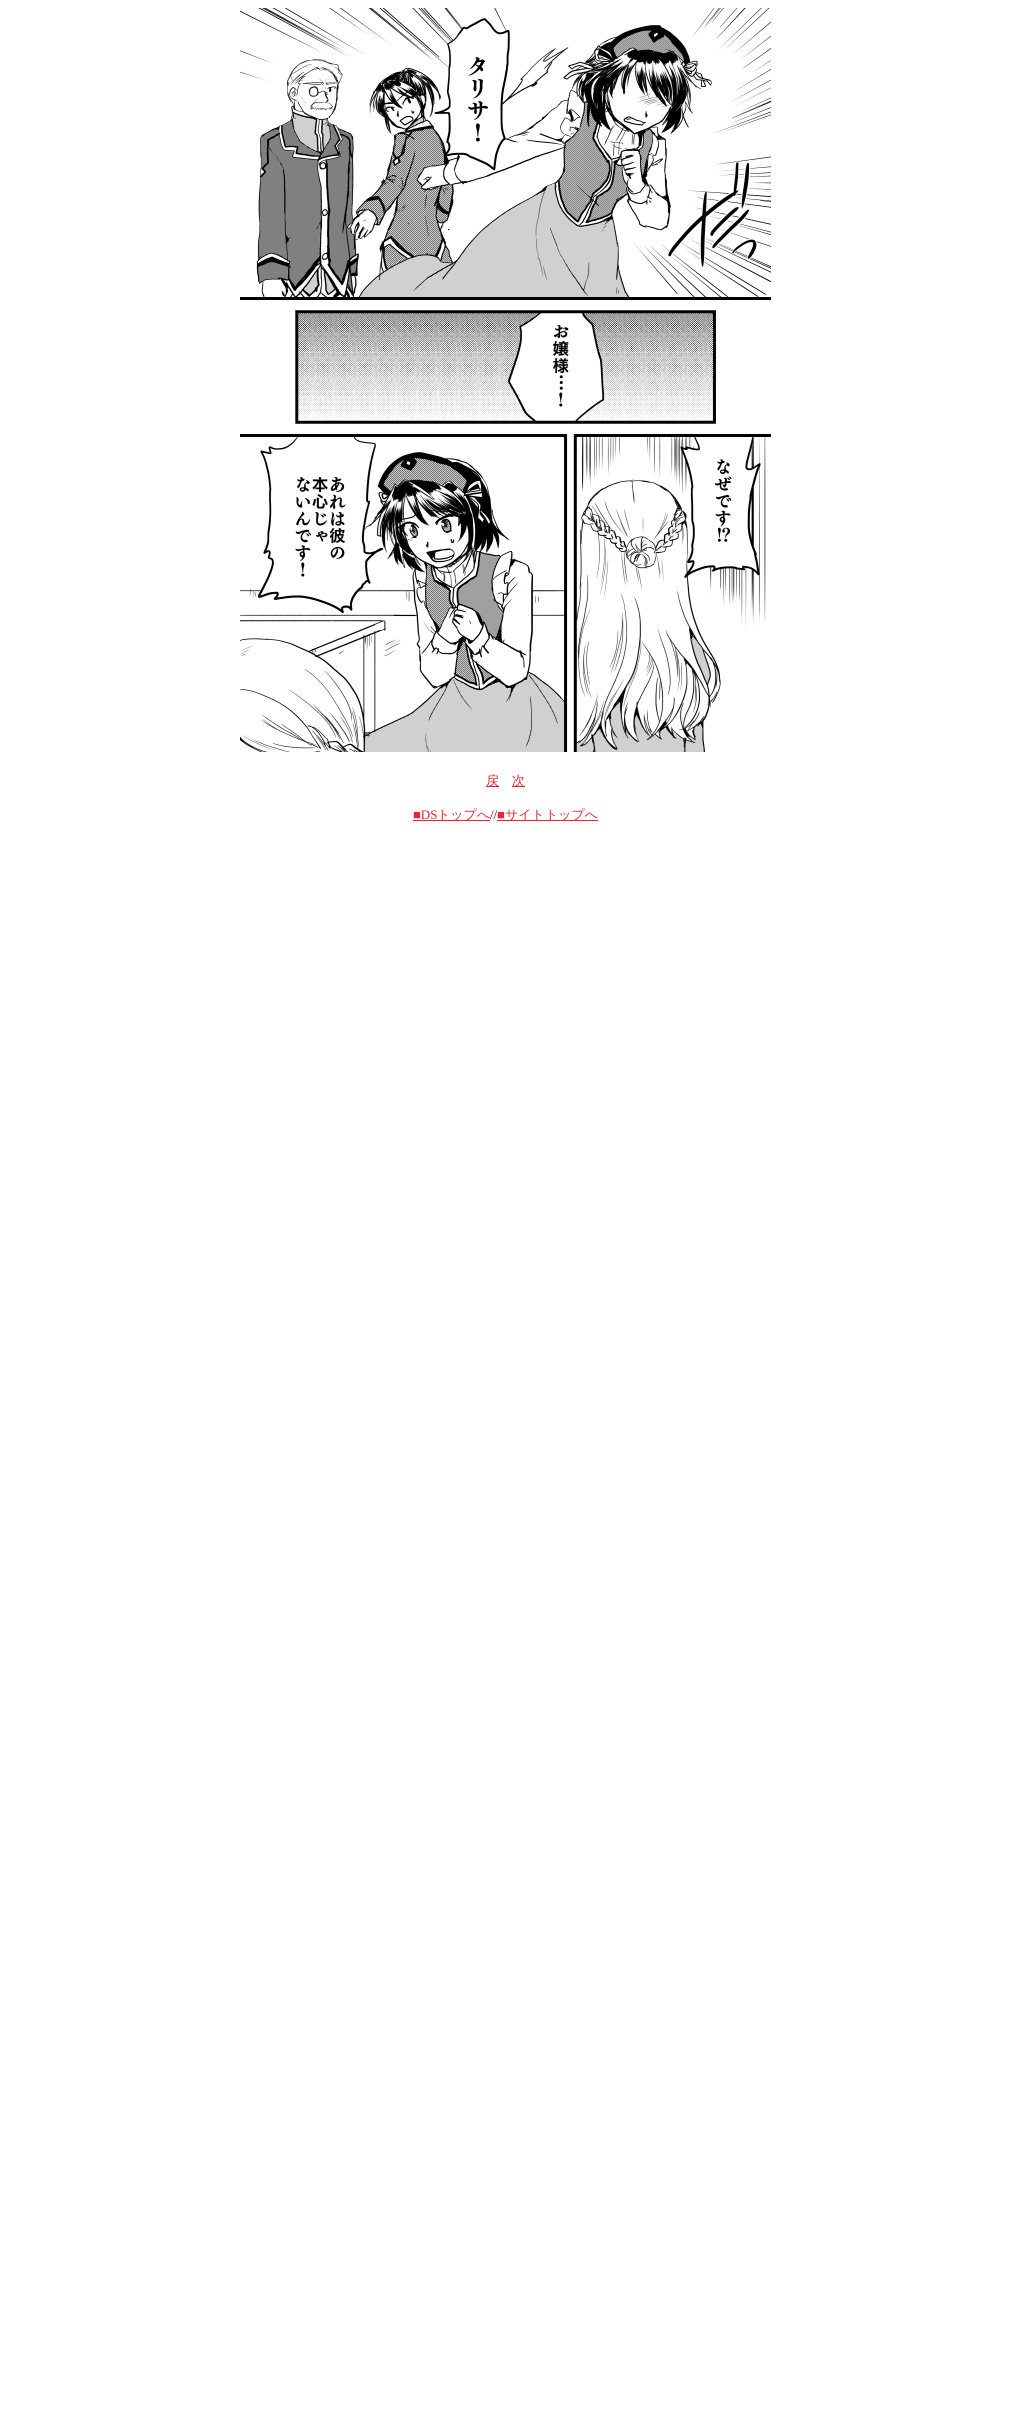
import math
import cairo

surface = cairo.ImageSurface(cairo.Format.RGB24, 1011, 2431)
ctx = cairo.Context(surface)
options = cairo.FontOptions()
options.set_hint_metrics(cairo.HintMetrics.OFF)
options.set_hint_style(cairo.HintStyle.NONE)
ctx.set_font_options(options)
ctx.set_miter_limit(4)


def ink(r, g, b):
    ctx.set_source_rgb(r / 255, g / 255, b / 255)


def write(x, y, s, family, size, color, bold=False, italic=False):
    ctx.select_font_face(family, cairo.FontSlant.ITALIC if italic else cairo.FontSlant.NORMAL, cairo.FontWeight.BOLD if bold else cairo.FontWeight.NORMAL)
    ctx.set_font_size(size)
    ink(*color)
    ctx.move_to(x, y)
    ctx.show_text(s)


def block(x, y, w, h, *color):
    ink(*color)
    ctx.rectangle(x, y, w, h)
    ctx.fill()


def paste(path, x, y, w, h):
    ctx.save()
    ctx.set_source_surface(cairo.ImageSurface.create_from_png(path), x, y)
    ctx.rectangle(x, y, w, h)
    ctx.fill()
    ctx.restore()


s1 = dict(family="WenQuanYi Zen Hei Medium", size=13, color=(238, 34, 51))
s2 = dict(family="Liberation Serif", size=13, color=(238, 34, 51))
s3 = dict(family="Liberation Serif", size=13, color=(85, 0, 0))

ink(255, 255, 255)
ctx.paint()
paste("pic1.png", 240, 8, 531, 744)
block(486, 786, 13, 1, 238, 34, 51)
write(486, 785, "戻", **s1)
block(512, 786, 13, 1, 238, 34, 51)
write(512, 785, "次", **s1)
write(413, 819, "■DS", **s2)
block(413, 820, 77, 1, 238, 34, 51)
write(437, 819, "トップへ", **s1)
write(490, 819, "//", **s3)
write(497, 819, "■", **s2)
block(497, 820, 101, 1, 238, 34, 51)
write(505, 819, "サイトトップへ", **s1)
surface.write_to_png("screenshot.png")
